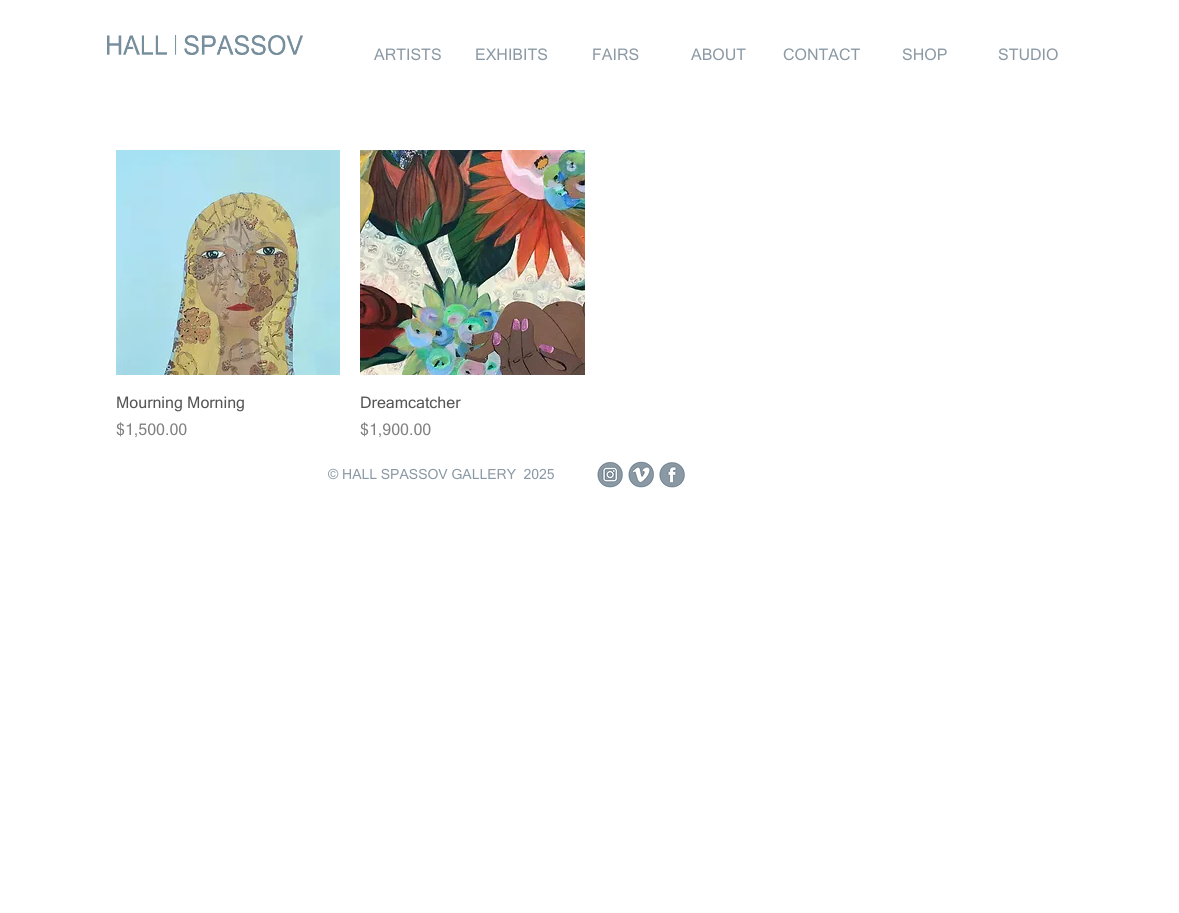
import math
import cairo

surface = cairo.ImageSurface(cairo.Format.RGB24, 1179, 913)
ctx = cairo.Context(surface)
options = cairo.FontOptions()
options.set_hint_metrics(cairo.HintMetrics.OFF)
options.set_hint_style(cairo.HintStyle.NONE)
ctx.set_font_options(options)
ctx.set_miter_limit(4)


def ink(r, g, b):
    ctx.set_source_rgb(r / 255, g / 255, b / 255)


def write(x, y, s, family, size, color, bold=False, italic=False):
    ctx.select_font_face(family, cairo.FontSlant.ITALIC if italic else cairo.FontSlant.NORMAL, cairo.FontWeight.BOLD if bold else cairo.FontWeight.NORMAL)
    ctx.set_font_size(size)
    ink(*color)
    ctx.move_to(x, y)
    ctx.show_text(s)


def paste(path, x, y, w, h):
    ctx.save()
    ctx.set_source_surface(cairo.ImageSurface.create_from_png(path), x, y)
    ctx.rectangle(x, y, w, h)
    ctx.fill()
    ctx.restore()


s1 = dict(family="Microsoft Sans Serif", size=16, color=(139, 153, 164))
s2 = dict(family="Microsoft Sans Serif", size=16, color=(85, 85, 85))
s3 = dict(family="Microsoft Sans Serif", size=16, color=(128, 128, 128))
s4 = dict(family="Microsoft Sans Serif", size=14, color=(139, 153, 164))

ink(255, 255, 255)
ctx.paint()
paste("pic1.png", 107, 35, 196, 20)
write(374, 60, "ARTISTS", **s1)
write(475, 60, "EXHIBITS", **s1)
write(592, 60, "FAIRS", **s1)
write(691, 60, "ABOUT", **s1)
write(783, 60, "CONTACT", **s1)
write(902, 60, "SHOP", **s1)
write(998, 60, "STUDIO", **s1)
paste("pic2.png", 116, 150, 224, 225)
write(116, 408, "Mourning Morning", **s2)
write(116, 435, "$1,500.00", **s3)
paste("pic3.png", 360, 150, 225, 225)
write(360, 408, "Dreamcatcher", **s2)
write(360, 435, "$1,900.00", **s3)
write(328, 479, "© HALL SPASSOV GALLERY  2025", **s4)
paste("pic4.png", 597, 462, 26, 26)
paste("pic5.png", 628, 461, 26, 27)
paste("pic6.png", 659, 462, 26, 26)
surface.write_to_png("screenshot.png")
